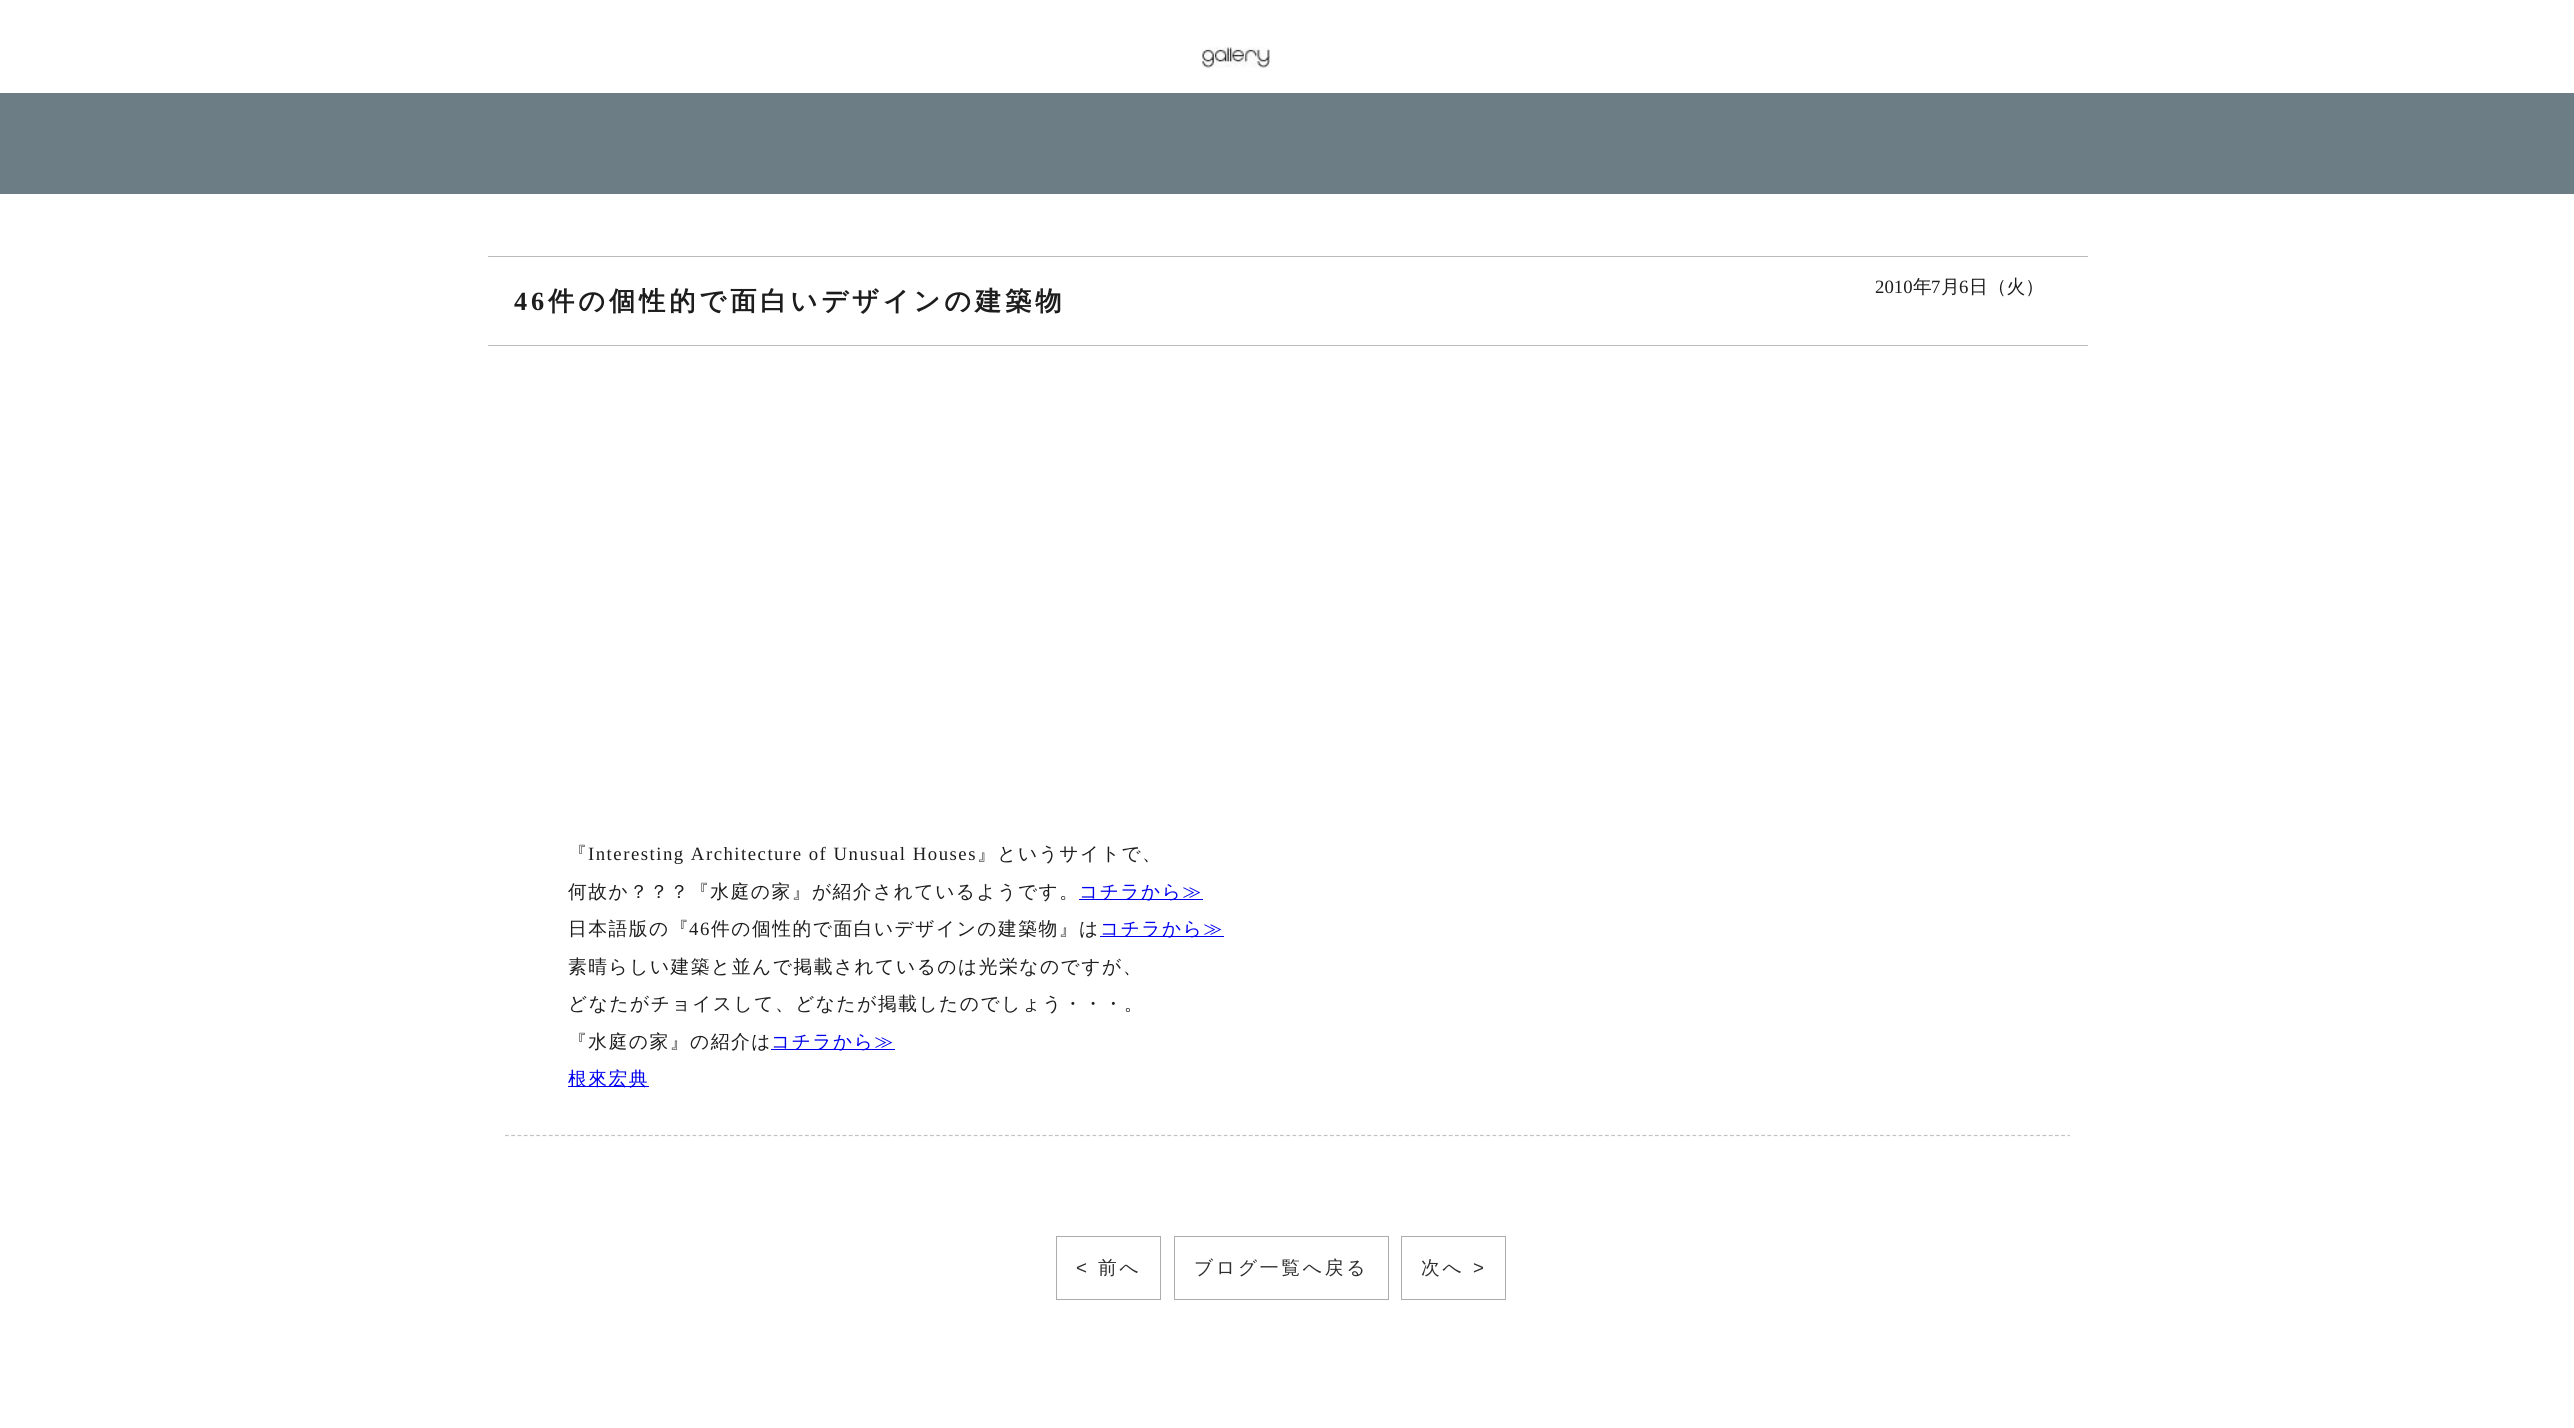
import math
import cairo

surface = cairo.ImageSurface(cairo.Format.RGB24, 2574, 1428)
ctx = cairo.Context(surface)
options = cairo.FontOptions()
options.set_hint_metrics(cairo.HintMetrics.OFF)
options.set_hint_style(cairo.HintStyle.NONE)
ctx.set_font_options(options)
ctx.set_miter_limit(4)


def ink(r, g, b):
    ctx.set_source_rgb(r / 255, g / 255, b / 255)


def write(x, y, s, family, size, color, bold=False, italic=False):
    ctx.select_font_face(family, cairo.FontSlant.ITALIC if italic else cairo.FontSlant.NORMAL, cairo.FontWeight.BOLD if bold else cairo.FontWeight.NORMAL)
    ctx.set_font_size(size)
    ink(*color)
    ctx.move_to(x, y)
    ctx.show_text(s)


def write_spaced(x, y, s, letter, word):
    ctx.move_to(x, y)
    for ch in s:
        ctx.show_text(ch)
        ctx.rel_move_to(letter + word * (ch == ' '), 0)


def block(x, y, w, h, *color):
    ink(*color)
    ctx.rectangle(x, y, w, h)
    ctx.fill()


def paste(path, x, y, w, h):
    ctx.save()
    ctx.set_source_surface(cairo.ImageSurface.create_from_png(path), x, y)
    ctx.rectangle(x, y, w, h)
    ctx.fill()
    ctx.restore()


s1 = dict(family="Liberation Serif", size=18.75, color=(29, 29, 29))
s2 = dict(family="WenQuanYi Zen Hei Medium", size=18.75, color=(29, 29, 29))

ink(255, 255, 255)
ctx.paint()
paste("pic1.png", 1202, 47, 68, 21)
block(0, 93, 2574, 101, 109, 125, 134)
block(488, 256, 1600, 1, 188, 188, 188)
block(488, 345, 1600, 1, 188, 188, 188)
ctx.select_font_face("Liberation Serif", cairo.FontSlant.NORMAL, cairo.FontWeight.BOLD)
ctx.set_font_size(26.25)
ink(29, 29, 29)
write_spaced(514, 310, "46", 3.9, 0)
ctx.select_font_face("WenQuanYi Zen Hei", cairo.FontSlant.NORMAL, cairo.FontWeight.BOLD)
write_spaced(548, 310, "件の個性的で面白いデザインの建築物", 3.9, 0)
write(1875, 293, "2010", **s1)
write(1913, 293, "年", **s2)
write(1931, 293, "7", **s1)
write(1941, 293, "月", **s2)
write(1959, 293, "6", **s1)
write(1969, 293, "日（火）", **s2)
ctx.new_path()
ctx.move_to(505, 1135.5)
ctx.line_to(2070, 1135.5)
ink(194, 194, 194)
ctx.set_line_width(1.2)
ctx.set_dash([3.75, 2.5])
ctx.stroke()
ink(29, 29, 29)
write_spaced(568, 860, "『", 1.5, 0)
ctx.select_font_face("Liberation Serif")
write_spaced(588, 860, "Interesting Architecture of Unusual Houses", 1.5, 0)
ctx.select_font_face("WenQuanYi Zen Hei Medium")
write_spaced(977, 860, "』というサイトで、", 1.5, 0)
write_spaced(568, 898, "何故か？？？『水庭の家』が紹介されているようです。", 1.5, 0)
block(1079, 899, 124, 1, 0, 0, 238)
write_spaced(1079, 898, "コチラから≫", 1.5, 0)
ink(29, 29, 29)
write_spaced(568, 935, "日本語版の『", 1.5, 0)
ctx.select_font_face("Liberation Serif")
write_spaced(689, 935, "46", 1.5, 0)
ctx.select_font_face("WenQuanYi Zen Hei Medium")
write_spaced(711, 935, "件の個性的で面白いデザインの建築物』は", 1.5, 0)
block(1100, 936, 124, 1, 0, 0, 238)
write_spaced(1100, 935, "コチラから≫", 1.5, 0)
ink(29, 29, 29)
write_spaced(568, 973, "素晴らしい建築と並んで掲載されているのは光栄なのですが、", 1.5, 0)
write_spaced(568, 1010, "どなたがチョイスして、どなたが掲載したのでしょう・・・。", 1.5, 0)
write_spaced(568, 1048, "『水庭の家』の紹介は", 1.5, 0)
block(771, 1049, 124, 1, 0, 0, 238)
write_spaced(771, 1048, "コチラから≫", 1.5, 0)
block(568, 1086, 81, 1, 0, 0, 238)
write_spaced(568, 1085, "根來宏典", 1.5, 0)
ctx.rectangle(1056.5, 1236.5, 104, 63)
ink(172, 172, 172)
ctx.set_line_width(1)
ctx.set_dash([])
ctx.stroke()
ctx.select_font_face("Liberation Sans")
ink(46, 46, 46)
write_spaced(1076, 1274, "<", 2.75, 0)
ctx.select_font_face("WenQuanYi Zen Hei Medium")
write_spaced(1098, 1274, "前へ", 2.75, 0)
ctx.rectangle(1174.5, 1236.5, 214, 63)
ink(172, 172, 172)
ctx.stroke()
ink(46, 46, 46)
write_spaced(1194, 1274, "ブログ一覧へ戻る", 2.75, 0)
ctx.rectangle(1401.5, 1236.5, 104, 63)
ink(172, 172, 172)
ctx.stroke()
ink(46, 46, 46)
write_spaced(1421, 1274, "次へ", 2.75, 0)
ctx.select_font_face("Liberation Sans")
write_spaced(1473, 1274, ">", 2.75, 0)
surface.write_to_png("screenshot.png")
